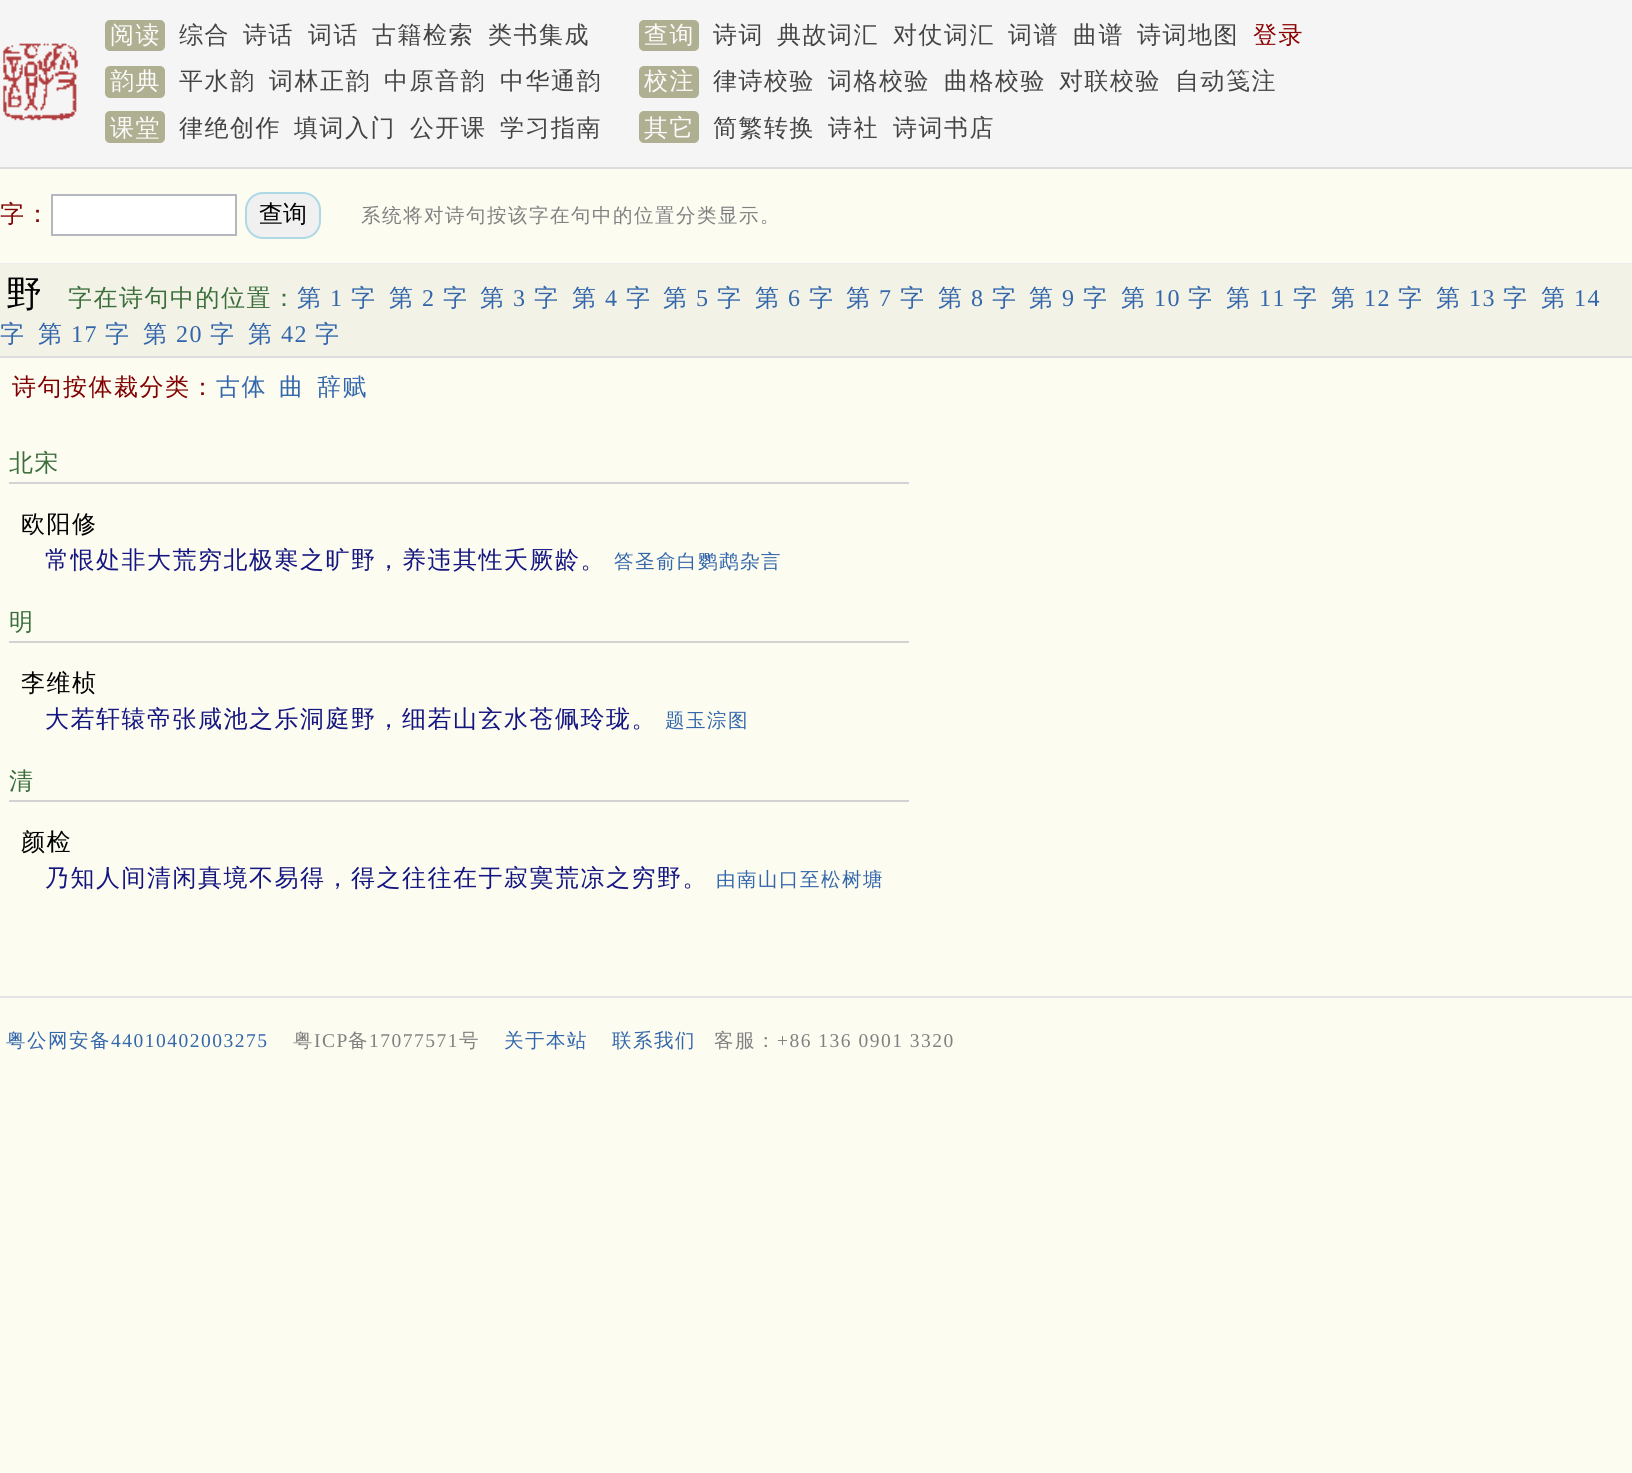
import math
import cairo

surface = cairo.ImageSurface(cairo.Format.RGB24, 1632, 1473)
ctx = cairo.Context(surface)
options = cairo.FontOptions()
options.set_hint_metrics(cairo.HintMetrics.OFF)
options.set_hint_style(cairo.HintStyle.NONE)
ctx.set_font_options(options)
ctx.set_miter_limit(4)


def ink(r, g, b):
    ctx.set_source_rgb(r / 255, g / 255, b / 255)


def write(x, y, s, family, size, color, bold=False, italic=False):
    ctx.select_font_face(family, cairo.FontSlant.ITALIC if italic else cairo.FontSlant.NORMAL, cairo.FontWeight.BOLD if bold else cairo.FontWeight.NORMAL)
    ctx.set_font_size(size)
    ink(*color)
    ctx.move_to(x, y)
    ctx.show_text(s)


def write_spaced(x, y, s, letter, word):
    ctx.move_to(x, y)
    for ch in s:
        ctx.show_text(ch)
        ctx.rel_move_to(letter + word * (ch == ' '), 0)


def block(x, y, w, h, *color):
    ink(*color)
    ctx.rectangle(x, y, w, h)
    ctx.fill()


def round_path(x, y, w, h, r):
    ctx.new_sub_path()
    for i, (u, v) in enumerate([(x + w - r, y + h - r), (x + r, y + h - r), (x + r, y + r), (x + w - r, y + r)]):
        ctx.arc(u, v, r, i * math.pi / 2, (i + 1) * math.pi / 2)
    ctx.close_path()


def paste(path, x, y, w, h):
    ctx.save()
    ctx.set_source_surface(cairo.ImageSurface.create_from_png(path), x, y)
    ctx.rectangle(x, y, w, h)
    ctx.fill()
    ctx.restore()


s1 = dict(family="WenQuanYi Zen Hei Medium", size=24, color=(0, 0, 0))

ink(252, 252, 241)
ctx.paint()
block(0, 0, 1632, 167, 245, 245, 245)
block(0, 167, 1632, 2, 221, 221, 221)
ink(175, 175, 146)
round_path(105, 20, 60, 31, 5)
ctx.fill()
ctx.select_font_face("WenQuanYi Zen Hei Medium")
ctx.set_font_size(24)
ink(251, 251, 251)
write_spaced(110, 43, "阅读", 1.5, 0)
ink(68, 68, 68)
write_spaced(179, 43, "综合", 1.5, 0)
write_spaced(243, 43, "诗话", 1.5, 0)
write_spaced(308, 43, "词话", 1.5, 0)
write_spaced(372, 43, "古籍检索", 1.5, 0)
write_spaced(488, 43, "类书集成", 1.5, 0)
ink(175, 175, 146)
round_path(639, 20, 60, 31, 5)
ctx.fill()
ink(251, 251, 251)
write_spaced(644, 43, "查询", 1.5, 0)
ink(68, 68, 68)
write_spaced(713, 43, "诗词", 1.5, 0)
write_spaced(777, 43, "典故词汇", 1.5, 0)
write_spaced(893, 43, "对仗词汇", 1.5, 0)
write_spaced(1008, 43, "词谱", 1.5, 0)
write_spaced(1073, 43, "曲谱", 1.5, 0)
write_spaced(1137, 43, "诗词地图", 1.5, 0)
ink(139, 0, 0)
write_spaced(1253, 43, "登录", 1.5, 0)
paste("pic1.png", 3, 43, 76, 78)
ink(175, 175, 146)
round_path(105, 66, 60, 32, 5)
ctx.fill()
ink(251, 251, 251)
write_spaced(110, 89, "韵典", 1.5, 0)
ink(68, 68, 68)
write_spaced(179, 89, "平水韵", 1.5, 0)
write_spaced(269, 89, "词林正韵", 1.5, 0)
write_spaced(384, 89, "中原音韵", 1.5, 0)
write_spaced(500, 89, "中华通韵", 1.5, 0)
ink(175, 175, 146)
round_path(639, 66, 60, 32, 5)
ctx.fill()
ink(251, 251, 251)
write_spaced(644, 89, "校注", 1.5, 0)
ink(68, 68, 68)
write_spaced(713, 89, "律诗校验", 1.5, 0)
write_spaced(828, 89, "词格校验", 1.5, 0)
write_spaced(944, 89, "曲格校验", 1.5, 0)
write_spaced(1059, 89, "对联校验", 1.5, 0)
write_spaced(1175, 89, "自动笺注", 1.5, 0)
ink(175, 175, 146)
round_path(105, 111, 60, 32, 5)
ctx.fill()
ink(251, 251, 251)
write_spaced(110, 136, "课堂", 1.5, 0)
ink(68, 68, 68)
write_spaced(179, 136, "律绝创作", 1.5, 0)
write_spaced(294, 136, "填词入门", 1.5, 0)
write_spaced(410, 136, "公开课", 1.5, 0)
write_spaced(500, 136, "学习指南", 1.5, 0)
ink(175, 175, 146)
round_path(639, 111, 60, 32, 5)
ctx.fill()
ink(251, 251, 251)
write_spaced(644, 136, "其它", 1.5, 0)
ink(68, 68, 68)
write_spaced(713, 136, "简繁转换", 1.5, 0)
write_spaced(828, 136, "诗社", 1.5, 0)
write_spaced(893, 136, "诗词书店", 1.5, 0)
ink(128, 0, 0)
write_spaced(0, 222, "字：", 1.5, 0)
ink(255, 255, 255)
ctx.rectangle(52, 195, 184, 40)
ctx.fill_preserve()
ink(180, 183, 190)
ctx.stroke()
ink(240, 240, 240)
round_path(246, 193, 74, 45, 17)
ctx.fill_preserve()
ink(173, 216, 230)
ctx.stroke()
write(259, 222, "查询", **s1)
ctx.set_font_size(19.5)
ink(128, 128, 128)
write_spaced(361, 222, "系统将对诗句按该字在句中的位置分类显示。", 1.5, 0)
block(0, 263, 1632, 1, 238, 238, 238)
block(0, 264, 1632, 92, 242, 242, 231)
block(0, 356, 1632, 2, 221, 221, 221)
ctx.set_font_size(36)
ink(0, 0, 0)
write_spaced(6, 306, "野", 1.5, 0)
ctx.set_font_size(24)
ink(59, 110, 58)
write_spaced(68, 306, "字在诗句中的位置：", 1.5, 0)
ink(51, 102, 170)
write_spaced(297, 306, "第", 1.5, 0)
ctx.select_font_face("Liberation Serif")
write_spaced(330, 306, "1", 1.5, 0)
ctx.select_font_face("WenQuanYi Zen Hei Medium")
write_spaced(351, 306, "字", 1.5, 0)
write_spaced(389, 306, "第", 1.5, 0)
ctx.select_font_face("Liberation Serif")
write_spaced(422, 306, "2", 1.5, 0)
ctx.select_font_face("WenQuanYi Zen Hei Medium")
write_spaced(443, 306, "字", 1.5, 0)
write_spaced(480, 306, "第", 1.5, 0)
ctx.select_font_face("Liberation Serif")
write_spaced(513, 306, "3", 1.5, 0)
ctx.select_font_face("WenQuanYi Zen Hei Medium")
write_spaced(534, 306, "字", 1.5, 0)
write_spaced(572, 306, "第", 1.5, 0)
ctx.select_font_face("Liberation Serif")
write_spaced(605, 306, "4", 1.5, 0)
ctx.select_font_face("WenQuanYi Zen Hei Medium")
write_spaced(626, 306, "字", 1.5, 0)
write_spaced(663, 306, "第", 1.5, 0)
ctx.select_font_face("Liberation Serif")
write_spaced(696, 306, "5", 1.5, 0)
ctx.select_font_face("WenQuanYi Zen Hei Medium")
write_spaced(717, 306, "字", 1.5, 0)
write_spaced(755, 306, "第", 1.5, 0)
ctx.select_font_face("Liberation Serif")
write_spaced(788, 306, "6", 1.5, 0)
ctx.select_font_face("WenQuanYi Zen Hei Medium")
write_spaced(809, 306, "字", 1.5, 0)
write_spaced(846, 306, "第", 1.5, 0)
ctx.select_font_face("Liberation Serif")
write_spaced(879, 306, "7", 1.5, 0)
ctx.select_font_face("WenQuanYi Zen Hei Medium")
write_spaced(900, 306, "字", 1.5, 0)
write_spaced(938, 306, "第", 1.5, 0)
ctx.select_font_face("Liberation Serif")
write_spaced(971, 306, "8", 1.5, 0)
ctx.select_font_face("WenQuanYi Zen Hei Medium")
write_spaced(992, 306, "字", 1.5, 0)
write_spaced(1029, 306, "第", 1.5, 0)
ctx.select_font_face("Liberation Serif")
write_spaced(1062, 306, "9", 1.5, 0)
ctx.select_font_face("WenQuanYi Zen Hei Medium")
write_spaced(1083, 306, "字", 1.5, 0)
write_spaced(1121, 306, "第", 1.5, 0)
ctx.select_font_face("Liberation Serif")
write_spaced(1154, 306, "10", 1.5, 0)
ctx.select_font_face("WenQuanYi Zen Hei Medium")
write_spaced(1188, 306, "字", 1.5, 0)
write_spaced(1226, 306, "第", 1.5, 0)
ctx.select_font_face("Liberation Serif")
write_spaced(1259, 306, "11", 1.5, 0)
ctx.select_font_face("WenQuanYi Zen Hei Medium")
write_spaced(1293, 306, "字", 1.5, 0)
write_spaced(1331, 306, "第", 1.5, 0)
ctx.select_font_face("Liberation Serif")
write_spaced(1364, 306, "12", 1.5, 0)
ctx.select_font_face("WenQuanYi Zen Hei Medium")
write_spaced(1398, 306, "字", 1.5, 0)
write_spaced(1436, 306, "第", 1.5, 0)
ctx.select_font_face("Liberation Serif")
write_spaced(1469, 306, "13", 1.5, 0)
ctx.select_font_face("WenQuanYi Zen Hei Medium")
write_spaced(1503, 306, "字", 1.5, 0)
write_spaced(1541, 306, "第", 1.5, 0)
ctx.select_font_face("Liberation Serif")
write_spaced(1574, 306, "14", 1.5, 0)
ctx.select_font_face("WenQuanYi Zen Hei Medium")
write_spaced(0, 342, "字", 1.5, 0)
write_spaced(38, 342, "第", 1.5, 0)
ctx.select_font_face("Liberation Serif")
write_spaced(71, 342, "17", 1.5, 0)
ctx.select_font_face("WenQuanYi Zen Hei Medium")
write_spaced(105, 342, "字", 1.5, 0)
write_spaced(143, 342, "第", 1.5, 0)
ctx.select_font_face("Liberation Serif")
write_spaced(176, 342, "20", 1.5, 0)
ctx.select_font_face("WenQuanYi Zen Hei Medium")
write_spaced(210, 342, "字", 1.5, 0)
write_spaced(248, 342, "第", 1.5, 0)
ctx.select_font_face("Liberation Serif")
write_spaced(281, 342, "42", 1.5, 0)
ctx.select_font_face("WenQuanYi Zen Hei Medium")
write_spaced(315, 342, "字", 1.5, 0)
ink(128, 0, 0)
write_spaced(12, 395, "诗句按体裁分类：", 1.5, 0)
ink(51, 102, 170)
write_spaced(216, 395, "古体", 1.5, 0)
write_spaced(279, 395, "曲", 1.5, 0)
write_spaced(317, 395, "辞赋", 1.5, 0)
block(9, 482, 900, 2, 211, 211, 211)
ink(59, 110, 58)
write_spaced(9, 471, "北宋", 1.5, 0)
ink(0, 0, 0)
write_spaced(21, 532, "欧阳修", 1.5, 0)
ink(20, 21, 128)
write_spaced(45, 568, "常恨处非大荒穷北极寒之旷野，养违其性夭厥龄。", 1.5, 0)
ctx.set_font_size(19.5)
ink(51, 102, 170)
write_spaced(614, 568, "答圣俞白鹦鹉杂言", 1.5, 0)
block(9, 641, 900, 2, 211, 211, 211)
ctx.set_font_size(24)
ink(59, 110, 58)
write_spaced(9, 630, "明", 1.5, 0)
ink(0, 0, 0)
write_spaced(21, 691, "李维桢", 1.5, 0)
ink(20, 21, 128)
write_spaced(45, 727, "大若轩辕帝张咸池之乐洞庭野，细若山玄水苍佩玲珑。", 1.5, 0)
ctx.set_font_size(19.5)
ink(51, 102, 170)
write_spaced(665, 727, "题玉淙图", 1.5, 0)
block(9, 800, 900, 2, 211, 211, 211)
ctx.set_font_size(24)
ink(59, 110, 58)
write_spaced(9, 789, "清", 1.5, 0)
ink(0, 0, 0)
write_spaced(21, 850, "颜检", 1.5, 0)
ink(20, 21, 128)
write_spaced(45, 886, "乃知人间清闲真境不易得，得之往往在于寂寞荒凉之穷野。", 1.5, 0)
ctx.set_font_size(19.5)
ink(51, 102, 170)
write_spaced(716, 886, "由南山口至松树塘", 1.5, 0)
block(0, 996, 1632, 2, 229, 229, 229)
ink(51, 102, 170)
write_spaced(6, 1047, "粤公网安备", 1.5, 0)
ctx.select_font_face("Liberation Serif")
write_spaced(111, 1047, "44010402003275", 1.5, 0)
ctx.select_font_face("WenQuanYi Zen Hei Medium")
ink(128, 128, 128)
write_spaced(293, 1047, "粤", 1.5, 0)
ctx.select_font_face("Liberation Serif")
write_spaced(314, 1047, "ICP", 1.5, 0)
ctx.select_font_face("WenQuanYi Zen Hei Medium")
write_spaced(348, 1047, "备", 1.5, 0)
ctx.select_font_face("Liberation Serif")
write_spaced(369, 1047, "17077571", 1.5, 0)
ctx.select_font_face("WenQuanYi Zen Hei Medium")
write_spaced(459, 1047, "号", 1.5, 0)
ink(51, 102, 170)
write_spaced(504, 1047, "关于本站", 1.5, 0)
write_spaced(612, 1047, "联系我们", 1.5, 0)
ink(128, 128, 128)
write_spaced(714, 1047, "客服：", 1.5, 0)
ctx.select_font_face("Liberation Serif")
write_spaced(777, 1047, "+86 136 0901 3320", 1.5, 0)
surface.write_to_png("screenshot.png")
